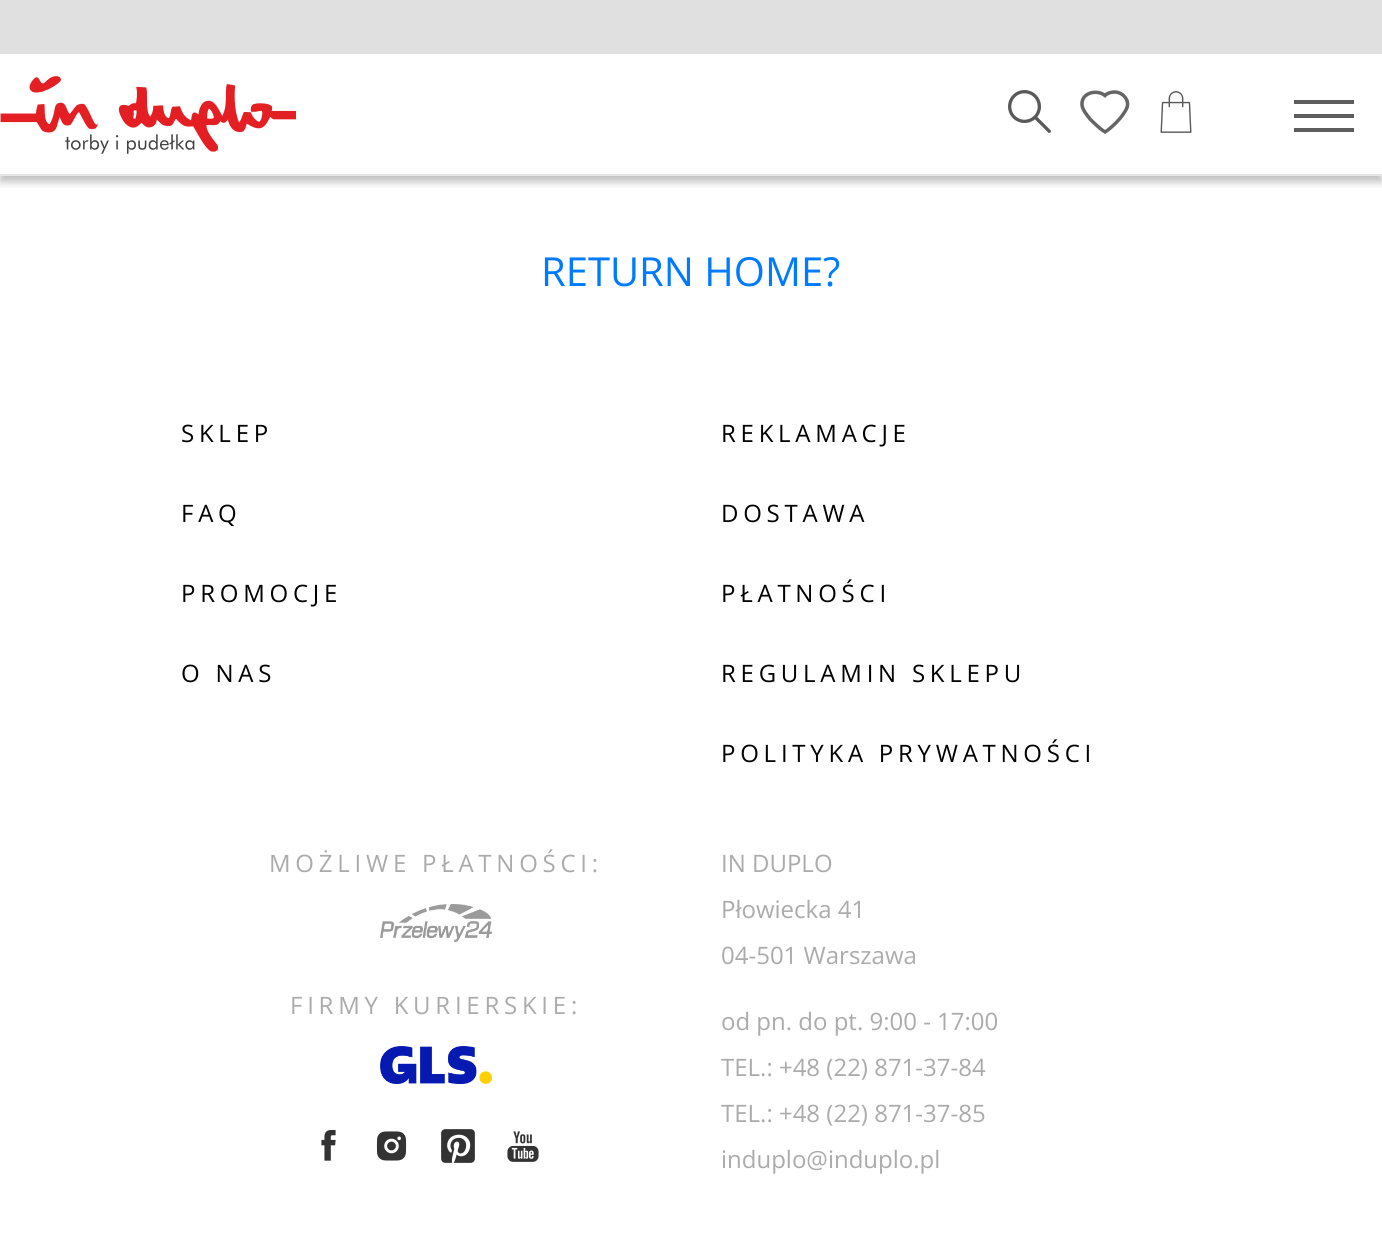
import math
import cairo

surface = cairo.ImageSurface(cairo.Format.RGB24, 1382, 1241)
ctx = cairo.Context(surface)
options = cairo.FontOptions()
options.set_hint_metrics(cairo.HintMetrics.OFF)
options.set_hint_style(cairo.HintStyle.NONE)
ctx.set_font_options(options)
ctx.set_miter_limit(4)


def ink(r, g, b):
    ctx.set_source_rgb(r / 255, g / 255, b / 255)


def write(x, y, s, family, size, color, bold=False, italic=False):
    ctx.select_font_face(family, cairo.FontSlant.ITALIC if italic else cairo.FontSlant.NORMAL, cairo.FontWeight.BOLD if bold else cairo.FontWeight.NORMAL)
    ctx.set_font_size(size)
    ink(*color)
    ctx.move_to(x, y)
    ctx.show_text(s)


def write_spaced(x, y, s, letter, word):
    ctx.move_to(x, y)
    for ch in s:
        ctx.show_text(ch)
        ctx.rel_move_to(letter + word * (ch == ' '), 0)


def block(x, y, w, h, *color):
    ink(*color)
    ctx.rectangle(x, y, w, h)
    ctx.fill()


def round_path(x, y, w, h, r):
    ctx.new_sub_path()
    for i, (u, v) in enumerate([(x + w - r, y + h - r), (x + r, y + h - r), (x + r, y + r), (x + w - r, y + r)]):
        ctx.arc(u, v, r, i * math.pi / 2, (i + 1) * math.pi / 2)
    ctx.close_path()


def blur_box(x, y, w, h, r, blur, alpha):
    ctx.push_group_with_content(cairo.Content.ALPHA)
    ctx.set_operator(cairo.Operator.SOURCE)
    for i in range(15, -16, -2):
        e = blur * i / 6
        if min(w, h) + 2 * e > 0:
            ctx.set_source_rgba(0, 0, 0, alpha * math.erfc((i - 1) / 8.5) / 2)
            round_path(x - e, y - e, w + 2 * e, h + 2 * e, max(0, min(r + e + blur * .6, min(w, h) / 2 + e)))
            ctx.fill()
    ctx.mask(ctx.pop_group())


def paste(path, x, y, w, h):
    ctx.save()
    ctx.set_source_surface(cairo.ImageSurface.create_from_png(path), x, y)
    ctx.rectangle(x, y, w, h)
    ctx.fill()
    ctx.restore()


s1 = dict(family="Open Sans", size=40, color=(0, 123, 255))
s2 = dict(family="Open Sans", size=24, color=(171, 171, 171))

ink(255, 255, 255)
ctx.paint()
ctx.save()
ctx.rectangle(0, 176, 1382, 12)
ctx.clip()
ink(0, 0, 0)
blur_box(0, 8, 1382, 174, 0, 4, 0.25)
ctx.restore()
block(0, 0, 1382, 54, 224, 224, 224)
paste("pic1.png", 0, 76, 296, 78)
paste("pic2.png", 1008, 90, 43, 43)
ctx.new_path()
ctx.move_to(1115, 92)
ctx.curve_to(1111, 92, 1107.5, 93, 1105, 95.5)
ctx.curve_to(1097, 89, 1081, 92.5, 1082, 105)
ctx.curve_to(1082.5, 110, 1087, 115, 1090, 119)
ctx.curve_to(1094.5, 123.5, 1099.5, 128.5, 1105, 132)
ctx.curve_to(1110, 129, 1123, 117.5, 1127, 107.5)
ctx.curve_to(1129.5, 100.5, 1123.5, 92.5, 1115, 92)
ctx.close_path()
ink(101, 101, 101)
ctx.set_line_width(3.5)
ctx.stroke()
paste("pic3.png", 1160, 91, 32, 42)
block(1294, 114, 60, 4, 93, 93, 93)
block(1294, 100, 60, 4, 93, 93, 93)
block(1294, 128, 60, 4, 93, 93, 93)
block(0, 174, 1382, 2, 230, 230, 230)
write(541, 286, "RETURN HOME?", **s1)
ctx.set_font_size(24)
ink(0, 0, 0)
write_spaced(181, 442, "SKLEP", 4.75, 0)
write_spaced(181, 522, "FAQ", 4.75, 0)
write_spaced(181, 602, "PROMOCJE", 4.75, 0)
write_spaced(181, 682, "O NAS", 4.75, 0)
write_spaced(721, 442, "REKLAMACJE", 4.75, 0)
write_spaced(721, 522, "DOSTAWA", 4.75, 0)
write_spaced(721, 602, "PŁATNOŚCI", 4.75, 0)
write_spaced(721, 682, "REGULAMIN SKLEPU", 4.75, 0)
write_spaced(721, 762, "POLITYKA PRYWATNOŚCI", 4.75, 0)
ink(171, 171, 171)
write_spaced(269, 872, "MOŻLIWE PŁATNOŚCI:", 4.75, 0)
paste("pic4.png", 380, 904, 112, 38)
write_spaced(290, 1014, "FIRMY KURIERSKIE:", 4.75, 0)
paste("pic5.png", 380, 1046, 112, 38)
paste("pic6.png", 321, 1130, 15, 31)
paste("pic7.png", 376, 1131, 31, 30)
paste("pic8.png", 441, 1129, 34, 34)
paste("pic9.png", 507, 1131, 32, 31)
write(721, 872, "IN DUPLO", **s2)
write(721, 918, "Płowiecka 41", **s2)
write(721, 964, "04-501 Warszawa", **s2)
write(721, 1030, "od pn. do pt. 9:00 - 17:00", **s2)
write(721, 1076, "TEL.: +48 (22) 871-37-84", **s2)
write(721, 1122, "TEL.: +48 (22) 871-37-85", **s2)
write(721, 1168, "induplo@induplo.pl", **s2)
surface.write_to_png("screenshot.png")
